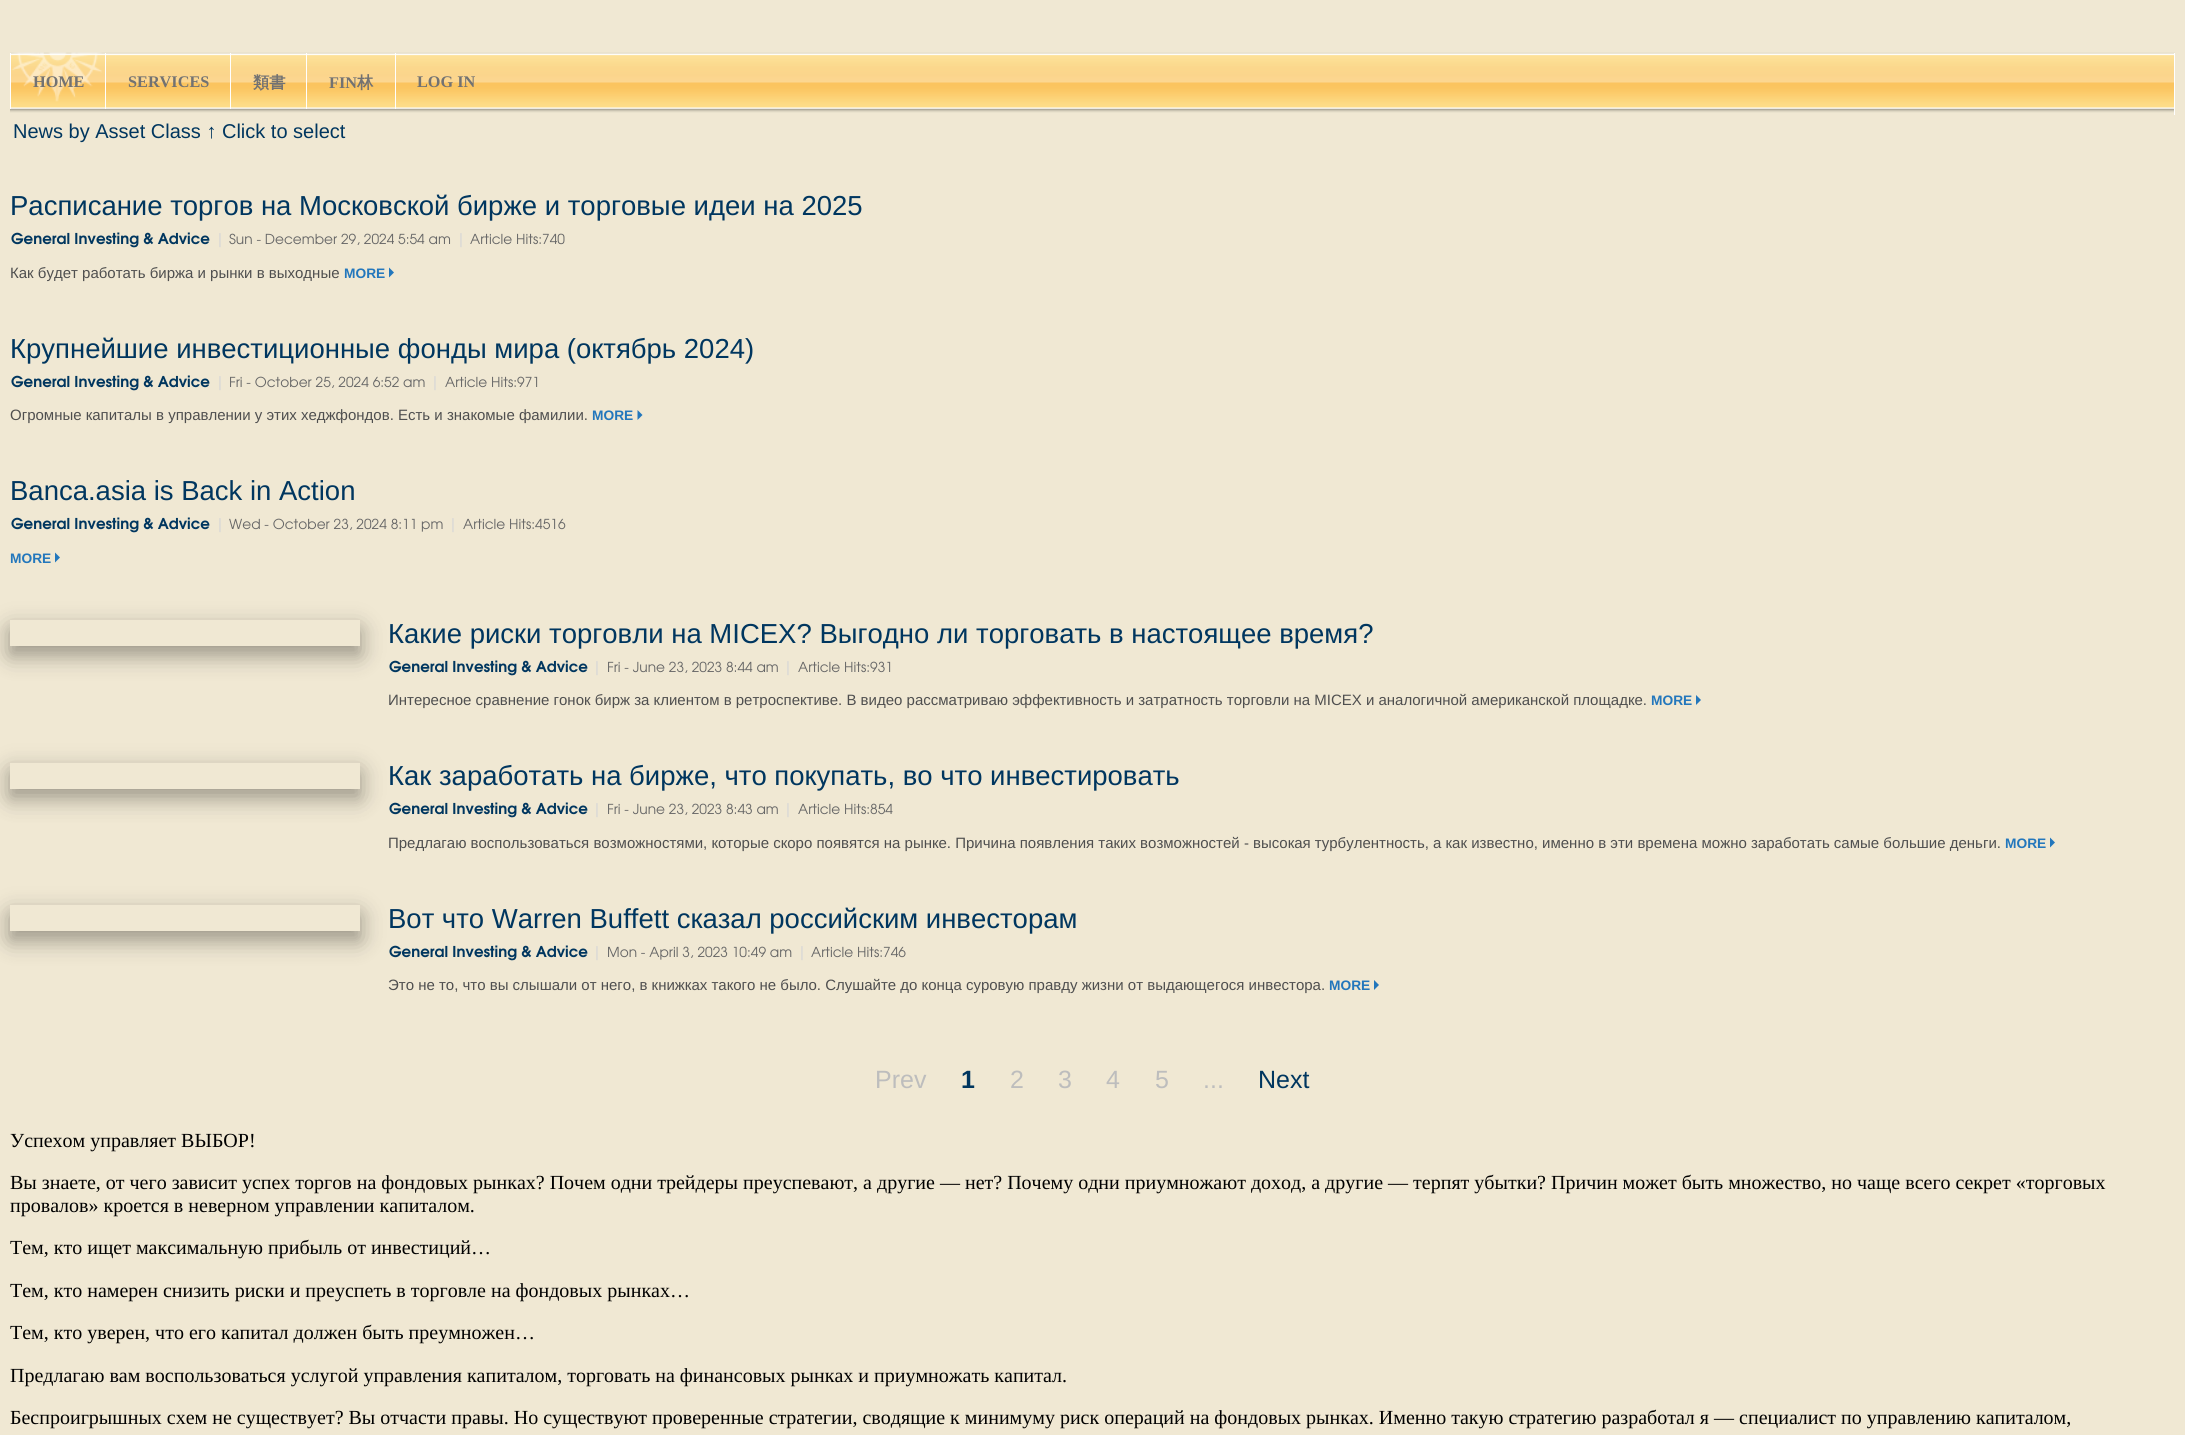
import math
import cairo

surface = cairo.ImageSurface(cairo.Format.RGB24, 2185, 1435)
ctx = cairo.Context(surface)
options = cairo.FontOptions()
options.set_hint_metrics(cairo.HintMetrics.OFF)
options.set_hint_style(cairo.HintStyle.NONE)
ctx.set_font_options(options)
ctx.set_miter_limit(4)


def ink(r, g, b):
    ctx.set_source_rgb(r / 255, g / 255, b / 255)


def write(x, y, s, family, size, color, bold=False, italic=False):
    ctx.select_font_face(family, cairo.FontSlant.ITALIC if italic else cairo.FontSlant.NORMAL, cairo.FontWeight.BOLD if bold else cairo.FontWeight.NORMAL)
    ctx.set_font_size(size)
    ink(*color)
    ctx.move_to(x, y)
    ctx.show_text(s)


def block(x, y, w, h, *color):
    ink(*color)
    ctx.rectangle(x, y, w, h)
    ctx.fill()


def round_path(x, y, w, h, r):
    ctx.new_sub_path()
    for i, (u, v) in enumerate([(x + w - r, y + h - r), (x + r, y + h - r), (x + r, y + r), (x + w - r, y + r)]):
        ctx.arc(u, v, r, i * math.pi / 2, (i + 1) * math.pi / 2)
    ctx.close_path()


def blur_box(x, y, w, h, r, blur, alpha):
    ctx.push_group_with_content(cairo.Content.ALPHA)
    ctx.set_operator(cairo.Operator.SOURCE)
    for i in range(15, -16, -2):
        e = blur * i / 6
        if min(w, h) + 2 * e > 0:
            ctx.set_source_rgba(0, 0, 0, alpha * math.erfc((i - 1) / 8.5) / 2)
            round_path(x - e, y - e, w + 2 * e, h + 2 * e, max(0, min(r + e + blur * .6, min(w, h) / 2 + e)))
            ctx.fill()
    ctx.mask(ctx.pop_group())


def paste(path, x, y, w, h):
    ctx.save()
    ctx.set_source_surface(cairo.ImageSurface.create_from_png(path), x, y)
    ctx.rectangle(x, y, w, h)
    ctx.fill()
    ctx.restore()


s1 = dict(family="Liberation Serif", size=16.25, color=(114, 114, 114), bold=True)
s2 = dict(family="WenQuanYi Zen Hei", size=16.25, color=(114, 114, 114), bold=True)
s3 = dict(family="Liberation Sans", size=20, color=(0, 54, 95))
s4 = dict(family="Liberation Sans", size=27.5, color=(0, 54, 95))
s5 = dict(family="TeX Gyre Adventor", size=15, color=(0, 54, 95), bold=True)
s6 = dict(family="Liberation Sans", size=15, color=(214, 214, 214))
s7 = dict(family="TeX Gyre Adventor", size=13.75, color=(103, 103, 103))
s8 = dict(family="Liberation Sans", size=15, color=(79, 79, 79))
s9 = dict(family="Liberation Sans", size=13.75, color=(35, 119, 188), bold=True)
s10 = dict(family="Liberation Sans", size=25, color=(189, 189, 189))
s11 = dict(family="Liberation Sans", size=25, color=(0, 54, 95), bold=True)
s12 = dict(family="Liberation Sans", size=25, color=(0, 54, 95))
s13 = dict(family="Liberation Serif", size=20, color=(0, 0, 0))

ink(240, 232, 211)
ctx.paint()
paste("pic1.png", 10, 52, 2165, 61)
block(2174, 53, 1, 62, 255, 255, 255)
paste("pic2.png", 11, 52, 91, 50)
block(10, 53, 1, 56, 255, 255, 255)
write(33, 87, "HOME", **s1)
block(105, 53, 1, 56, 255, 255, 255)
write(128, 87, "SERVICES", **s1)
block(230, 53, 1, 56, 255, 255, 255)
write(253, 88, "類書", **s2)
block(306, 53, 1, 56, 255, 255, 255)
write(329, 88, "FIN", **s1)
write(357, 88, "林", **s2)
block(395, 53, 1, 56, 255, 255, 255)
write(417, 87, "LOG IN", **s1)
write(13, 138, "News by Asset Class ↑ Click to select", **s3)
write(10, 215, "Расписание торгов на Московской бирже и торговые идеи на 2025", **s4)
write(11, 244, "General Investing & Advice", **s5)
write(218, 244, "|", **s6)
write(229, 244, "Sun - December 29, 2024 5:54 am", **s7)
write(459, 244, "|", **s6)
write(470, 244, "Article Hits:740", **s7)
write(10, 278, "Как будет работать биржа и рынки в выходные", **s8)
write(344, 278, "MORE", **s9)
ctx.new_path()
ctx.move_to(389, 277.5)
ctx.line_to(389, 267.5)
ctx.line_to(394, 272.5)
ctx.close_path()
ctx.fill()
write(10, 358, "Крупнейшие инвестиционные фонды мира (октябрь 2024)", **s4)
write(11, 387, "General Investing & Advice", **s5)
write(218, 387, "|", **s6)
write(229, 387, "Fri - October 25, 2024 6:52 am", **s7)
write(433, 387, "|", **s6)
write(445, 387, "Article Hits:971", **s7)
write(10, 420, "Огромные капиталы в управлении у этих хеджфондов. Есть и знакомые фамилии.", **s8)
write(592, 420, "MORE", **s9)
ctx.new_path()
ctx.move_to(637.5, 420)
ctx.line_to(637.5, 410)
ctx.line_to(642.5, 415)
ctx.close_path()
ctx.fill()
write(10, 500, "Banca.asia is Back in Action", **s4)
write(11, 529, "General Investing & Advice", **s5)
write(218, 529, "|", **s6)
write(229, 529, "Wed - October 23, 2024 8:11 pm", **s7)
write(451, 529, "|", **s6)
write(463, 529, "Article Hits:4516", **s7)
write(10, 563, "MORE", **s9)
ctx.new_path()
ctx.move_to(55, 562.5)
ctx.line_to(55, 552.5)
ctx.line_to(60, 557.5)
ctx.close_path()
ctx.fill()
ctx.save()
ctx.set_fill_rule(cairo.FillRule.EVEN_ODD)
ctx.new_path()
ctx.move_to(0, 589)
ctx.line_to(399, 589)
ctx.line_to(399, 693)
ctx.line_to(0, 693)
ctx.close_path()
ctx.move_to(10, 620)
ctx.line_to(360, 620)
ctx.line_to(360, 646)
ctx.line_to(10, 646)
ctx.close_path()
ctx.clip()
ink(0, 0, 0)
blur_box(10, 628, 350, 26, 0, 12.5, 0.19)
ctx.restore()
ctx.save()
ctx.set_fill_rule(cairo.FillRule.EVEN_ODD)
ctx.new_path()
ctx.move_to(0, 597)
ctx.line_to(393, 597)
ctx.line_to(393, 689)
ctx.line_to(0, 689)
ctx.close_path()
ctx.move_to(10, 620)
ctx.line_to(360, 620)
ctx.line_to(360, 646)
ctx.line_to(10, 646)
ctx.close_path()
ctx.clip()
ink(0, 0, 0)
blur_box(10, 630, 350, 26, 0, 10.5, 0.2)
ctx.restore()
write(388, 643, "Какие риски торговли на MICEX? Выгодно ли торговать в настоящее время?", **s4)
write(389, 672, "General Investing & Advice", **s5)
write(595, 672, "|", **s6)
write(607, 672, "Fri - June 23, 2023 8:44 am", **s7)
write(786, 672, "|", **s6)
write(798, 672, "Article Hits:931", **s7)
write(388, 705, "Интересное сравнение гонок бирж за клиентом в ретроспективе. В видео рассматриваю эффективность и затратность торговли на MICEX и аналогичной американской площадке.", **s8)
write(1651, 705, "MORE", **s9)
ctx.new_path()
ctx.move_to(1696, 705)
ctx.line_to(1696, 695)
ctx.line_to(1701, 700)
ctx.close_path()
ctx.fill()
ctx.save()
ctx.set_fill_rule(cairo.FillRule.EVEN_ODD)
ctx.new_path()
ctx.move_to(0, 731)
ctx.line_to(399, 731)
ctx.line_to(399, 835)
ctx.line_to(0, 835)
ctx.close_path()
ctx.move_to(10, 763)
ctx.line_to(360, 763)
ctx.line_to(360, 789)
ctx.line_to(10, 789)
ctx.close_path()
ctx.clip()
ink(0, 0, 0)
blur_box(10, 770, 350, 26, 0, 12.5, 0.19)
ctx.restore()
ctx.save()
ctx.set_fill_rule(cairo.FillRule.EVEN_ODD)
ctx.new_path()
ctx.move_to(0, 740)
ctx.line_to(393, 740)
ctx.line_to(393, 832)
ctx.line_to(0, 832)
ctx.close_path()
ctx.move_to(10, 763)
ctx.line_to(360, 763)
ctx.line_to(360, 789)
ctx.line_to(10, 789)
ctx.close_path()
ctx.clip()
ink(0, 0, 0)
blur_box(10, 773, 350, 26, 0, 10.5, 0.2)
ctx.restore()
write(388, 785, "Как заработать на бирже, что покупать, во что инвестировать", **s4)
write(389, 814, "General Investing & Advice", **s5)
write(595, 814, "|", **s6)
write(607, 814, "Fri - June 23, 2023 8:43 am", **s7)
write(786, 814, "|", **s6)
write(798, 814, "Article Hits:854", **s7)
write(388, 848, "Предлагаю воспользоваться возможностями, которые скоро появятся на рынке. Причина появления таких возможностей - высокая турбулентность, а как известно, именно в эти времена можно заработать самые большие деньги.", **s8)
write(2005, 848, "MORE", **s9)
ctx.new_path()
ctx.move_to(2050, 847.5)
ctx.line_to(2050, 837.5)
ctx.line_to(2055, 842.5)
ctx.close_path()
ctx.fill()
ctx.save()
ctx.set_fill_rule(cairo.FillRule.EVEN_ODD)
ctx.new_path()
ctx.move_to(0, 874)
ctx.line_to(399, 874)
ctx.line_to(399, 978)
ctx.line_to(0, 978)
ctx.close_path()
ctx.move_to(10, 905)
ctx.line_to(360, 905)
ctx.line_to(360, 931)
ctx.line_to(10, 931)
ctx.close_path()
ctx.clip()
ink(0, 0, 0)
blur_box(10, 913, 350, 26, 0, 12.5, 0.19)
ctx.restore()
ctx.save()
ctx.set_fill_rule(cairo.FillRule.EVEN_ODD)
ctx.new_path()
ctx.move_to(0, 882)
ctx.line_to(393, 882)
ctx.line_to(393, 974)
ctx.line_to(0, 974)
ctx.close_path()
ctx.move_to(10, 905)
ctx.line_to(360, 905)
ctx.line_to(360, 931)
ctx.line_to(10, 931)
ctx.close_path()
ctx.clip()
ink(0, 0, 0)
blur_box(10, 915, 350, 26, 0, 10.5, 0.2)
ctx.restore()
write(388, 928, "Вот что Warren Buffett сказал российским инвесторам", **s4)
write(389, 957, "General Investing & Advice", **s5)
write(595, 957, "|", **s6)
write(607, 957, "Mon - April 3, 2023 10:49 am", **s7)
write(800, 957, "|", **s6)
write(811, 957, "Article Hits:746", **s7)
write(388, 990, "Это не то, что вы слышали от него, в книжках такого не было. Слушайте до конца суровую правду жизни от выдающегося инвестора.", **s8)
write(1329, 990, "MORE", **s9)
ctx.new_path()
ctx.move_to(1374, 990)
ctx.line_to(1374, 980)
ctx.line_to(1379, 985)
ctx.close_path()
ctx.fill()
write(875, 1088, "Prev", **s10)
write(961, 1088, "1", **s11)
write(1010, 1088, "2", **s10)
write(1058, 1088, "3", **s10)
write(1106, 1088, "4", **s10)
write(1155, 1088, "5", **s10)
write(1203, 1088, "...", **s10)
write(1258, 1088, "Next", **s12)
write(10, 1147, "Успехом управляет ВЫБОР!", **s13)
write(10, 1189, "Вы знаете, от чего зависит успех торгов на фондовых рынках? Почем одни трейдеры преуспевают, а другие — нет? Почему одни приумножают доход, а другие — терпят убытки? Причин может быть множество, но чаще всего секрет «торговых", **s13)
write(10, 1212, "провалов» кроется в неверном управлении капиталом.", **s13)
write(10, 1254, "Тем, кто ищет максимальную прибыль от инвестиций…", **s13)
write(10, 1297, "Тем, кто намерен снизить риски и преуспеть в торговле на фондовых рынках…", **s13)
write(10, 1339, "Тем, кто уверен, что его капитал должен быть преумножен…", **s13)
write(10, 1382, "Предлагаю вам воспользоваться услугой управления капиталом, торговать на финансовых рынках и приумножать капитал.", **s13)
write(10, 1424, "Беспроигрышных схем не существует? Вы отчасти правы. Но существуют проверенные стратегии, сводящие к минимуму риск операций на фондовых рынках. Именно такую стратегию разработал я — специалист по управлению капиталом,", **s13)
surface.write_to_png("screenshot.png")
